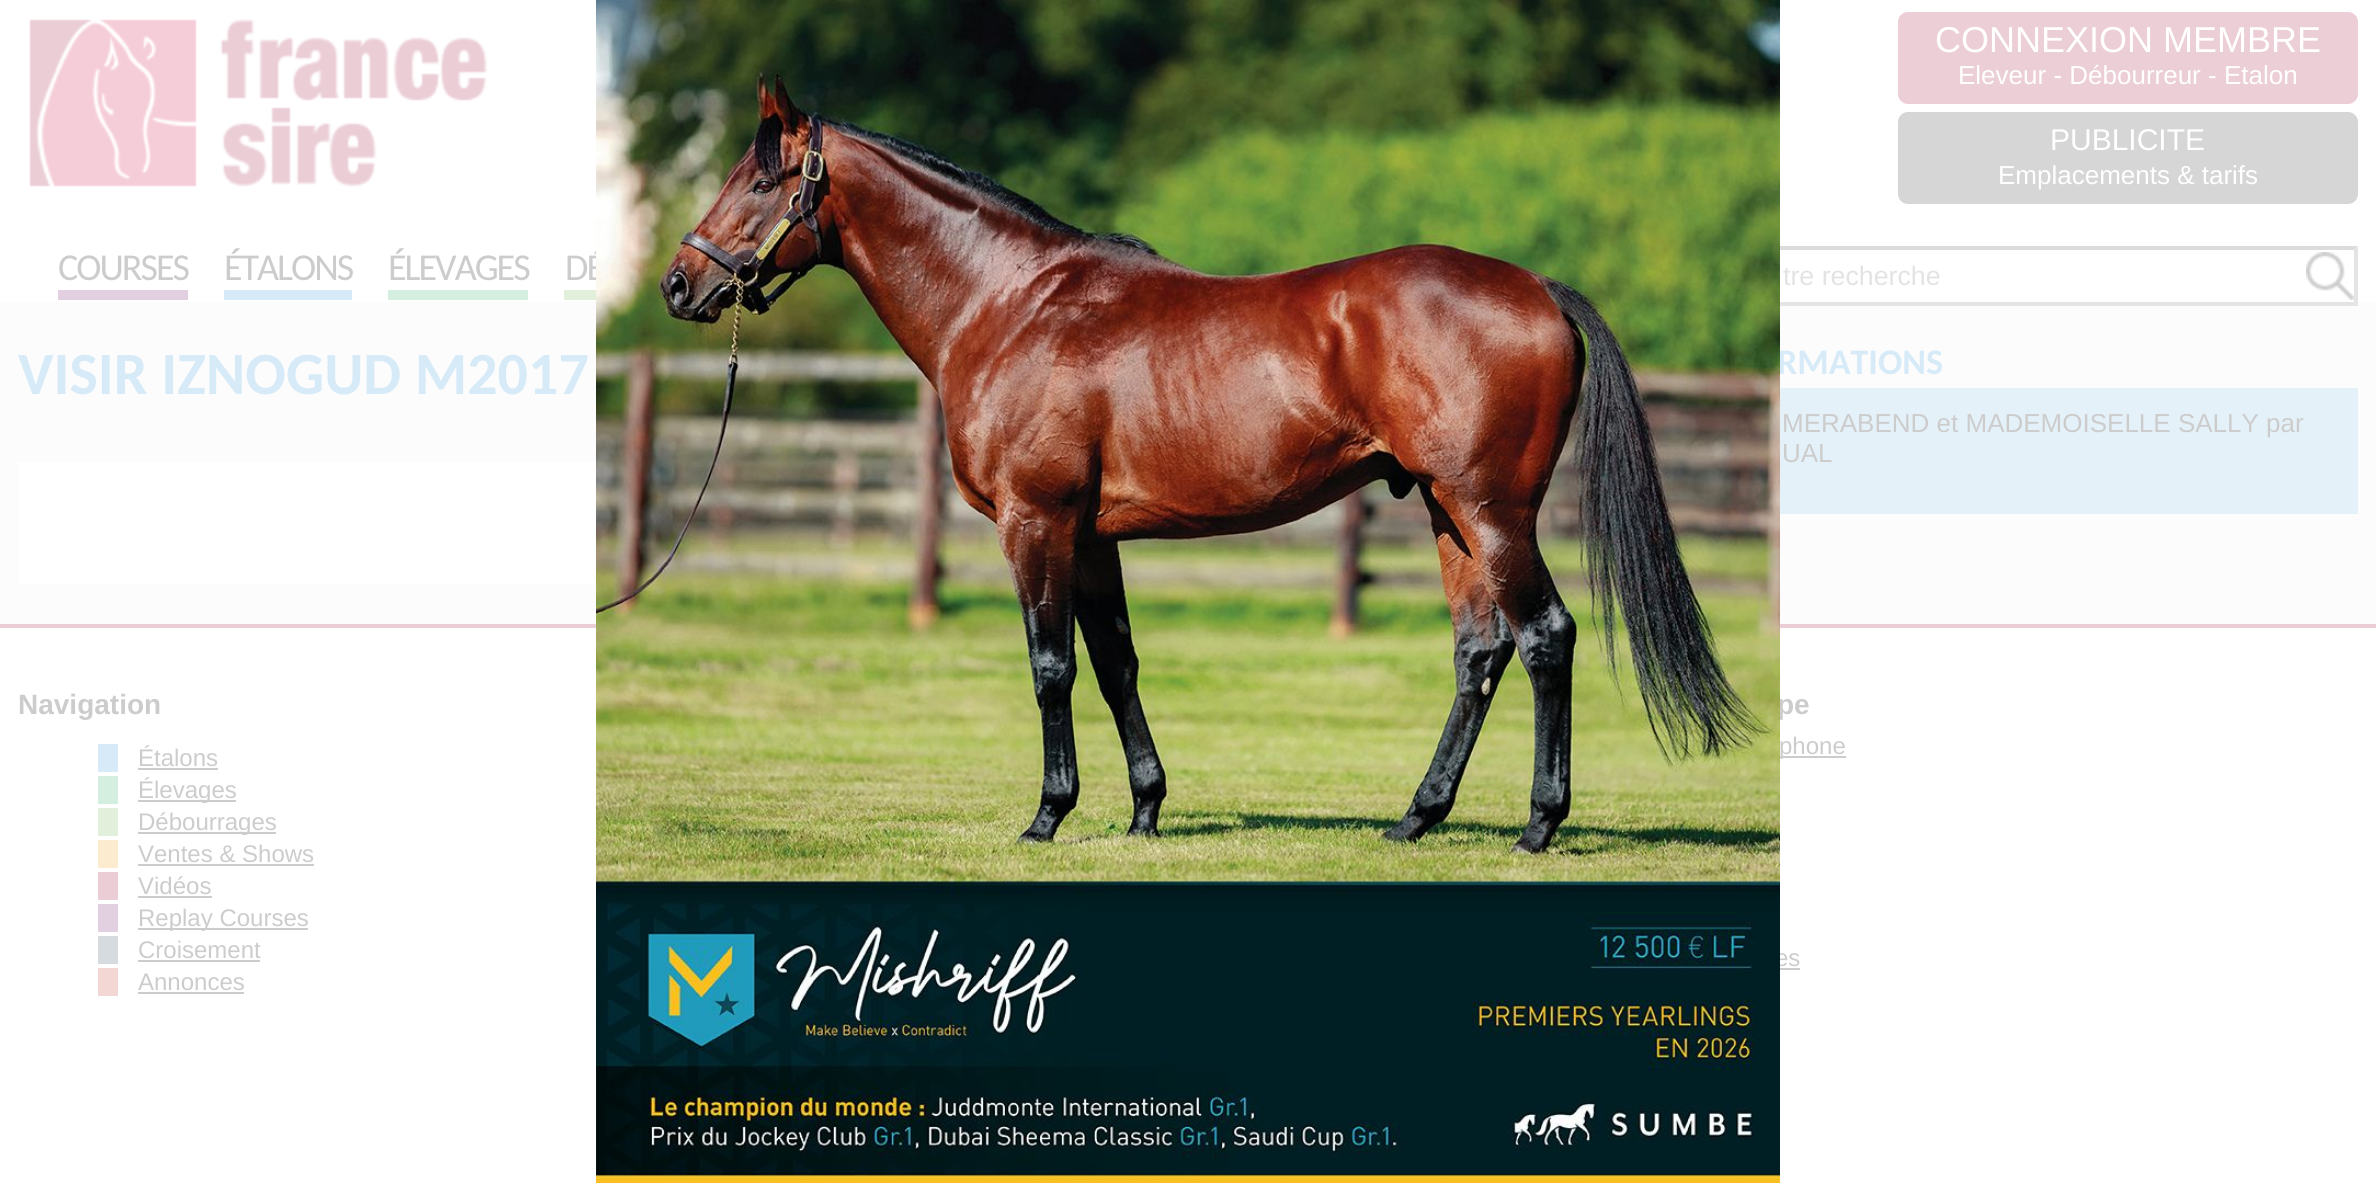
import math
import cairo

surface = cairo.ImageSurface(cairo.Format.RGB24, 2376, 1183)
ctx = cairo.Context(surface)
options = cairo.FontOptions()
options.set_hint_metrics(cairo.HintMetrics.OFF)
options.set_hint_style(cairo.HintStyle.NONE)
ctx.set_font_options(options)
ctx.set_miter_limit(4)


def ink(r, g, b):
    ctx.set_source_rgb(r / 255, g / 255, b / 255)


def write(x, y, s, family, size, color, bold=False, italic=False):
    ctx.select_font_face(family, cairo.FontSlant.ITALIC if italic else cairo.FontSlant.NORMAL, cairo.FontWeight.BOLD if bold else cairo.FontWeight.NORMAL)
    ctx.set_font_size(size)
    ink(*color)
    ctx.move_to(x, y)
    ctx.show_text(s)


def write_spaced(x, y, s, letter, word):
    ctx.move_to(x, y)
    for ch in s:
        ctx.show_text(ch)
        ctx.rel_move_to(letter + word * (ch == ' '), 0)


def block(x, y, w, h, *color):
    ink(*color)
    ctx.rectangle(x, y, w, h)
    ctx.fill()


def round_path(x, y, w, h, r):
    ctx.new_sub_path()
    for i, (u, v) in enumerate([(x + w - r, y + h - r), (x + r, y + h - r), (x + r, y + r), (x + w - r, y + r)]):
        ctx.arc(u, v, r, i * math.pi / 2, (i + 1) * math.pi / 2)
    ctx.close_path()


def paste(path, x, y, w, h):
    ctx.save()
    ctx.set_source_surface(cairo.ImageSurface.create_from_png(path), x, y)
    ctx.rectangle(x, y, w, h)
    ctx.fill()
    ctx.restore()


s1 = dict(family="Carlito", size=36, color=(214, 234, 248), bold=True)
s2 = dict(family="Liberation Sans", size=28, color=(204, 204, 204), bold=True)
s3 = dict(family="Liberation Sans", size=24, color=(204, 204, 204))
s4 = dict(family="Liberation Sans", size=36, color=(255, 255, 255))
s5 = dict(family="Liberation Sans", size=26, color=(255, 255, 255))
s6 = dict(family="Liberation Sans", size=30, color=(255, 255, 255))
s7 = dict(family="Liberation Sans", size=26.75, color=(227, 227, 227))
s8 = dict(family="Carlito", size=60, color=(214, 234, 248), bold=True)
s9 = dict(family="Liberation Sans", size=26, color=(204, 204, 204))

ink(252, 252, 252)
ctx.paint()
block(0, 0, 2376, 302, 255, 255, 255)
ctx.select_font_face("Carlito")
ctx.set_font_size(38)
ink(204, 204, 204)
write_spaced(565, 280, "DÉ", -2, 0)
ink(220, 220, 220)
ctx.new_path()
ctx.move_to(1742, 246)
ctx.line_to(2358, 246)
ctx.line_to(2354, 250)
ctx.line_to(1746, 250)
ctx.close_path()
ctx.fill()
block(1780, 302, 578, 4, 255, 255, 255)
ink(228, 228, 228)
ctx.new_path()
ctx.move_to(2358, 246)
ctx.line_to(2358, 306)
ctx.line_to(2354, 302)
ctx.line_to(2354, 250)
ctx.close_path()
ctx.fill()
ctx.new_path()
ctx.move_to(2358, 306)
ctx.line_to(1742, 306)
ctx.line_to(1746, 302)
ctx.line_to(2354, 302)
ctx.close_path()
ctx.fill()
write(1777, 374, "RMATIONS", **s1)
block(0, 628, 2376, 555, 255, 255, 255)
block(0, 624, 2376, 4, 235, 205, 213)
write(1777, 714, "pe", **s2)
write(1775, 966, "es", **s3)
paste("pic1.png", 596, 0, 1184, 1183)
paste("pic2.png", 29, 19, 460, 168)
ink(235, 206, 214)
round_path(1898, 12, 460, 92, 10)
ctx.fill()
write(1935, 52, "CONNEXION MEMBRE", **s4)
write(1958, 84, "Eleveur - Débourreur - Etalon", **s5)
ink(214, 214, 214)
round_path(1898, 112, 460, 92, 10)
ctx.fill()
write(2050, 150, "PUBLICITE", **s6)
write(1998, 184, "Emplacements & tarifs", **s5)
ctx.select_font_face("Carlito")
ctx.set_font_size(38)
ink(204, 204, 204)
write_spaced(58, 280, "COURSES", -2, 0)
block(58, 290, 130, 10, 226, 207, 224)
ink(204, 204, 204)
write_spaced(224, 280, "ÉTALONS", -2, 0)
block(224, 290, 128, 10, 214, 234, 248)
ink(204, 204, 204)
write_spaced(388, 280, "ÉLEVAGES", -2, 0)
block(388, 290, 140, 10, 212, 239, 223)
block(564, 290, 32, 10, 225, 239, 219)
paste("pic3.png", 2306, 252, 48, 48)
write(1783, 285, "tre recherche", **s7)
write(18, 394, "VISIR IZNOGUD M2017", **s8)
block(18, 462, 578, 122, 255, 255, 255)
block(1780, 388, 578, 126, 229, 241, 249)
write(1782, 432, "MERABEND et MADEMOISELLE SALLY par", **s9)
write(1782, 462, "UAL", **s9)
write(18, 714, "Navigation", **s2)
block(98, 744, 20, 28, 214, 234, 248)
write(138, 766, "Étalons", **s3)
block(138, 768, 80, 2, 204, 204, 204)
block(98, 776, 20, 28, 212, 239, 223)
block(138, 800, 98, 2, 204, 204, 204)
write(138, 798, "Élevages", **s3)
block(98, 808, 20, 28, 225, 239, 219)
block(138, 832, 138, 2, 204, 204, 204)
write(138, 830, "Débourrages", **s3)
block(98, 840, 20, 28, 253, 235, 208)
write(138, 862, "Ventes & Shows", **s3)
block(138, 864, 176, 2, 204, 204, 204)
block(98, 872, 20, 28, 235, 205, 213)
write(138, 894, "Vidéos", **s3)
block(138, 896, 74, 2, 204, 204, 204)
block(98, 904, 20, 28, 226, 207, 224)
block(138, 928, 170, 2, 204, 204, 204)
write(138, 926, "Replay Courses", **s3)
block(98, 936, 20, 28, 214, 219, 223)
write(138, 958, "Croisement", **s3)
block(138, 960, 122, 2, 204, 204, 204)
block(98, 968, 20, 28, 242, 215, 213)
write(138, 990, "Annonces", **s3)
block(138, 992, 106, 2, 204, 204, 204)
block(1780, 756, 66, 2, 204, 204, 204)
write(1779, 754, "phone", **s3)
block(1780, 968, 20, 2, 204, 204, 204)
surface.write_to_png("screenshot.png")
